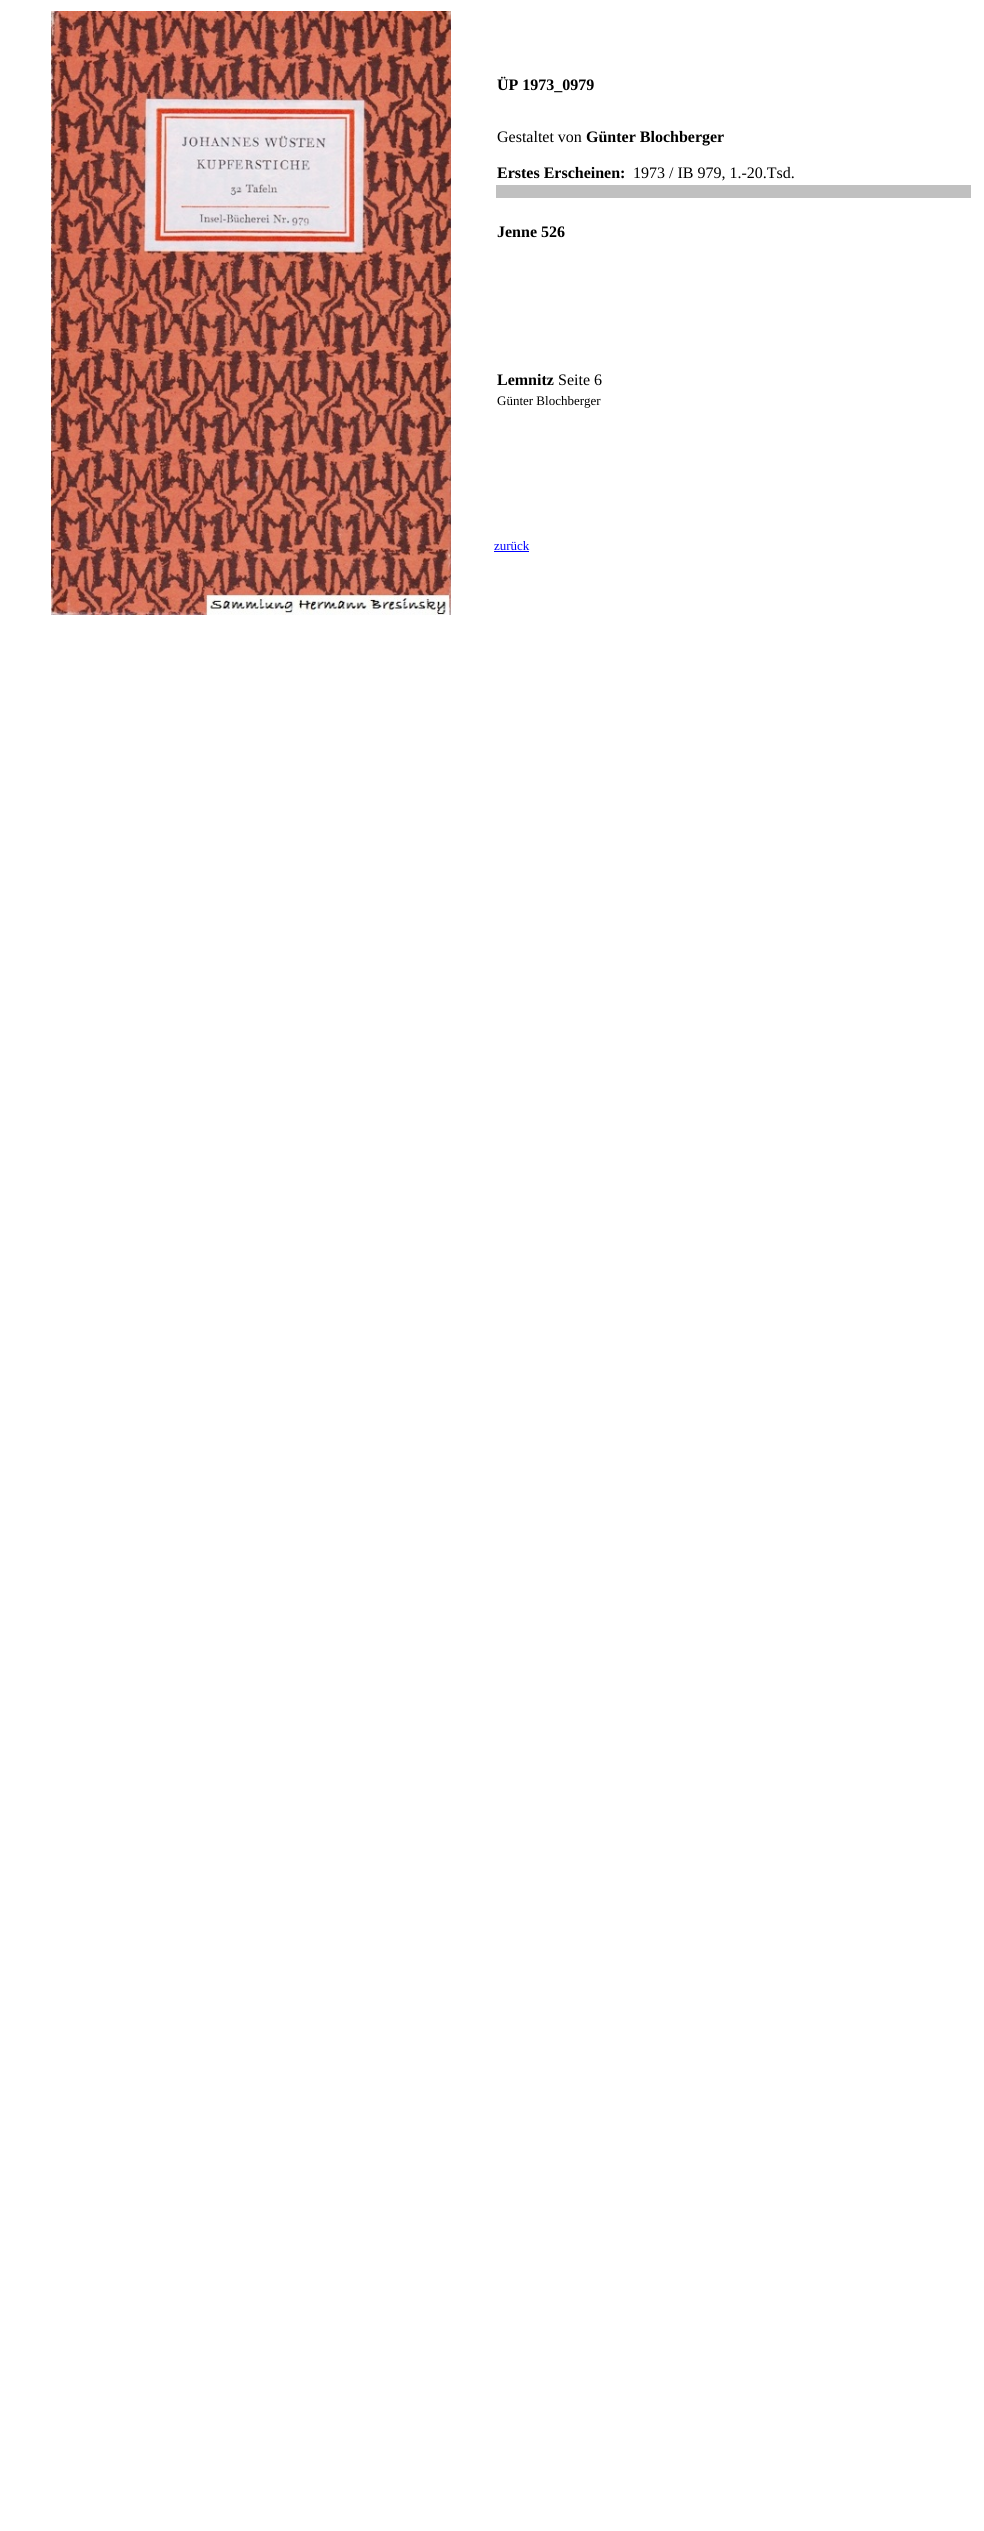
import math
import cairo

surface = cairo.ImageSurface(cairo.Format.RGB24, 984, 2531)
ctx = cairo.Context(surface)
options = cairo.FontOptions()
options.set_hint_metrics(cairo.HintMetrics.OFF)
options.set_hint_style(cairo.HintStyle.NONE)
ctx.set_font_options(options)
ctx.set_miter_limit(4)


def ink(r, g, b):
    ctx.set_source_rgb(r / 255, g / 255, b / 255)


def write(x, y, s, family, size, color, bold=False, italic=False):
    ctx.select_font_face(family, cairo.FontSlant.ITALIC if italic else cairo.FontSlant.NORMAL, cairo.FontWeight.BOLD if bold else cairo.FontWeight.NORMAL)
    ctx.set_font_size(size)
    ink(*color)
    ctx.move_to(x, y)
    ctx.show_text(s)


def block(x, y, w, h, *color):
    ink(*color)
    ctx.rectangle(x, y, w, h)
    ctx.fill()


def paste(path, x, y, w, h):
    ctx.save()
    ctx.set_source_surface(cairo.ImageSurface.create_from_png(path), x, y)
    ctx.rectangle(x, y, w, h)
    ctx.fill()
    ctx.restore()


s1 = dict(family="Liberation Serif", size=16, color=(0, 0, 0), bold=True)
s2 = dict(family="Liberation Serif", size=16, color=(0, 0, 0))
s3 = dict(family="Liberation Serif", size=13, color=(0, 0, 0))
s4 = dict(family="Liberation Serif", size=13, color=(0, 0, 255))

ink(255, 255, 255)
ctx.paint()
paste("pic1.png", 51, 11, 400, 604)
write(497, 90, "ÜP 1973_0979", **s1)
write(497, 142, "Gestaltet von", **s2)
write(586, 142, "Günter Blochberger", **s1)
write(497, 178, "Erstes Erscheinen:", **s1)
write(633, 178, "1973 / IB 979, 1.-20.Tsd.", **s2)
block(496, 185, 475, 13, 192, 192, 192)
write(497, 237, "Jenne 526", **s1)
write(497, 385, "Lemnitz", **s1)
write(558, 385, "Seite 6", **s2)
write(497, 405, "Günter Blochberger", **s3)
write(494, 550, "zurück", **s4)
block(494, 551, 35, 1, 0, 0, 255)
surface.write_to_png("screenshot.png")
